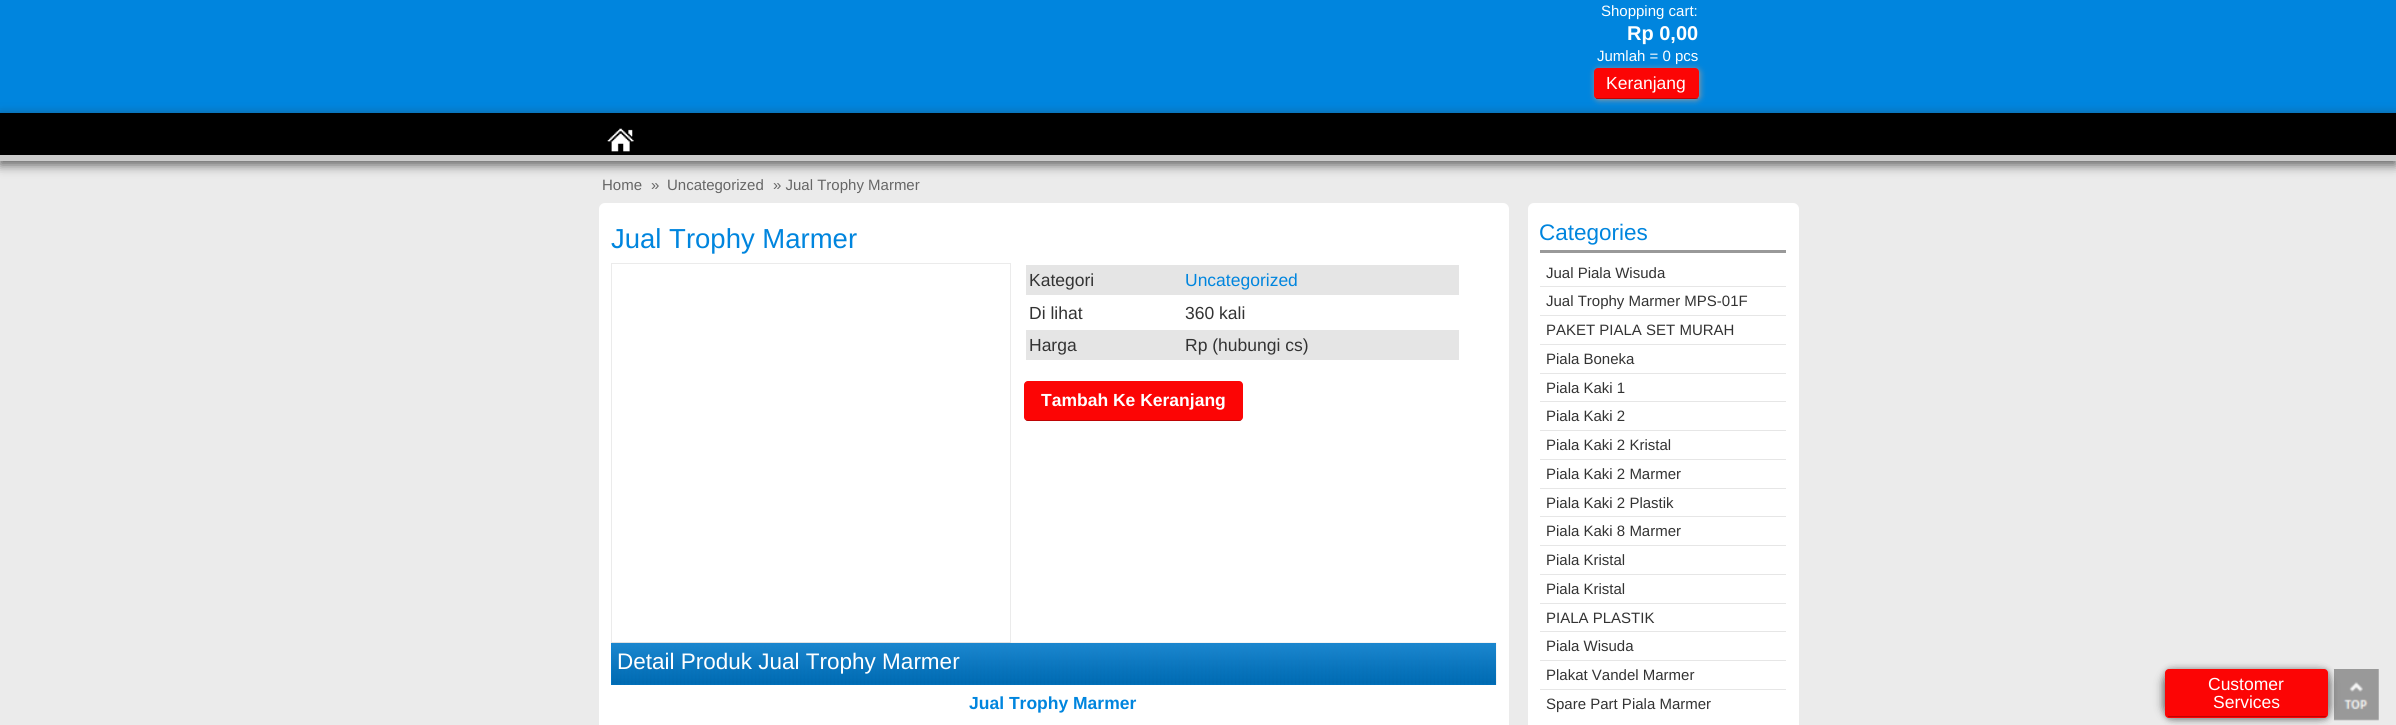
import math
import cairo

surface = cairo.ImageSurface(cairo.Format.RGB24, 2396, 725)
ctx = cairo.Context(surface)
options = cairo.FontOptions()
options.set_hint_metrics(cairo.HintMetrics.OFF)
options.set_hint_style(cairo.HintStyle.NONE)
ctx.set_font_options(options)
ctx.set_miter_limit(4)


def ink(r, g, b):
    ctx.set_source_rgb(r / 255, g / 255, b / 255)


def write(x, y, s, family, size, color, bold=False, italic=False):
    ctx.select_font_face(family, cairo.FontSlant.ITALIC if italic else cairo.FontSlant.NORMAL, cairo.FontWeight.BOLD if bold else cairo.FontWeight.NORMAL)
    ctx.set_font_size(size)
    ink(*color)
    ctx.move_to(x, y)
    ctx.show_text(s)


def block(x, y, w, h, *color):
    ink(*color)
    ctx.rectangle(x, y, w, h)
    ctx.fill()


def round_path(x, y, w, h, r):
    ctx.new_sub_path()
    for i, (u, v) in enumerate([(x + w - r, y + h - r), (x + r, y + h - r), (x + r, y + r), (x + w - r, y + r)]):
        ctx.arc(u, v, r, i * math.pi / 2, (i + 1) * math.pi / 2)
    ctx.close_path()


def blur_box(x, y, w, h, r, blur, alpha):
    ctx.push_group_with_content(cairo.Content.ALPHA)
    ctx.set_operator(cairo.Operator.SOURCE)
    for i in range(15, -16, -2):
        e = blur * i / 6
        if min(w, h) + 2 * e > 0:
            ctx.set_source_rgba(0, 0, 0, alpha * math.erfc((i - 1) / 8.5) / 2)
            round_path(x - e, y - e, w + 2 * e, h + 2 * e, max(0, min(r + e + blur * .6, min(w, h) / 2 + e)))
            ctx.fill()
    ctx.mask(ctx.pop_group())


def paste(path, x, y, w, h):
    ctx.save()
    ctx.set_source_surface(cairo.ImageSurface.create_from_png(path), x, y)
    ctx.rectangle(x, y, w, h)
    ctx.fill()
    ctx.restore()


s1 = dict(family="Liberation Sans", size=15, color=(255, 255, 255))
s2 = dict(family="Liberation Sans", size=20, color=(255, 255, 255), bold=True)
s3 = dict(family="Liberation Sans", size=17.5, color=(255, 255, 255))
s4 = dict(family="Liberation Sans", size=15, color=(102, 102, 102))
s5 = dict(family="Liberation Sans", size=27.5, color=(0, 133, 222))
s6 = dict(family="Liberation Sans", size=17.5, color=(51, 51, 51))
s7 = dict(family="Liberation Sans", size=17.5, color=(0, 133, 222))
s8 = dict(family="Liberation Sans", size=17.5, color=(255, 255, 255), bold=True)
s9 = dict(family="Liberation Sans", size=22.5, color=(255, 255, 255))
s10 = dict(family="Liberation Sans", size=17.5, color=(0, 133, 222), bold=True)
s11 = dict(family="Liberation Sans", size=22.5, color=(0, 133, 222))
s12 = dict(family="Liberation Sans", size=15, color=(51, 51, 51))

ink(235, 235, 235)
ctx.paint()
block(0, 0, 2396, 113, 0, 133, 222)
write(1601, 16, "Shopping cart:", **s1)
write(1627, 40, "Rp 0,00", **s2)
write(1597, 61, "Jumlah = 0 pcs", **s1)
ink(153, 153, 153)
blur_box(1595, 69, 105, 31, 4, 3, 1)
ink(50, 50, 50)
blur_box(0, 116, 2396, 49, 0, 5.5, 0.75)
ink(252, 5, 5)
round_path(1594, 68, 105, 31, 4)
ctx.fill()
ctx.set_source_rgba(0, 0, 0, 0.25)
ctx.rectangle(1596, 98, 102, 1)
ctx.fill()
write(1606, 89, "Keranjang", **s3)
block(0, 113, 2396, 42, 0, 0, 0)
block(0, 155, 2396, 6, 204, 204, 204)
paste("pic1.png", 607, 128, 27, 24)
write(602, 190, "Home", **s4)
write(651, 190, "»", **s4)
write(667, 190, "Uncategorized", **s4)
write(773, 190, "» Jual Trophy Marmer", **s4)
ink(255, 255, 255)
round_path(599, 203, 910, 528, 6)
ctx.fill()
write(611, 248, "Jual Trophy Marmer", **s5)
ctx.rectangle(611.5, 263.5, 399, 379)
ink(235, 235, 235)
ctx.set_line_width(1)
ctx.stroke()
block(1026, 265, 433, 30, 229, 229, 229)
write(1029, 286, "Kategori", **s6)
write(1185, 286, "Uncategorized", **s7)
write(1029, 319, "Di lihat", **s6)
write(1185, 319, "360 kali", **s6)
block(1026, 330, 433, 30, 229, 229, 229)
write(1029, 351, "Harga", **s6)
write(1185, 351, "Rp (hubungi cs)", **s6)
ink(252, 5, 5)
round_path(1024, 381, 219, 40, 4)
ctx.fill()
ctx.set_source_rgba(0, 0, 0, 0.25)
ctx.rectangle(1026, 420, 215, 1)
ctx.fill()
write(1041, 406, "Tambah Ke Keranjang", **s8)
block(611, 643, 885, 42, 0, 133, 222)
paste("pic2.png", 611, 642, 886, 43)
write(617, 669, "Detail Produk Jual Trophy Marmer", **s9)
write(969, 709, "Jual Trophy Marmer", **s10)
ink(255, 255, 255)
round_path(1528, 203, 271, 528, 6)
ctx.fill()
block(1540, 250, 246, 3, 153, 153, 153)
write(1539, 240, "Categories", **s11)
block(1540, 286, 246, 1, 230, 230, 230)
write(1546, 278, "Jual Piala Wisuda", **s12)
block(1540, 315, 246, 1, 230, 230, 230)
write(1546, 306, "Jual Trophy Marmer MPS-01F", **s12)
block(1540, 344, 246, 1, 230, 230, 230)
write(1546, 335, "PAKET PIALA SET MURAH", **s12)
block(1540, 373, 246, 1, 230, 230, 230)
write(1546, 364, "Piala Boneka", **s12)
block(1540, 401, 246, 1, 230, 230, 230)
write(1546, 393, "Piala Kaki 1", **s12)
block(1540, 430, 246, 1, 230, 230, 230)
write(1546, 421, "Piala Kaki 2", **s12)
block(1540, 459, 246, 1, 230, 230, 230)
write(1546, 450, "Piala Kaki 2 Kristal", **s12)
block(1540, 488, 246, 1, 230, 230, 230)
write(1546, 479, "Piala Kaki 2 Marmer", **s12)
block(1540, 516, 246, 1, 230, 230, 230)
write(1546, 508, "Piala Kaki 2 Plastik", **s12)
block(1540, 545, 246, 1, 230, 230, 230)
write(1546, 536, "Piala Kaki 8 Marmer", **s12)
block(1540, 574, 246, 1, 230, 230, 230)
write(1546, 565, "Piala Kristal", **s12)
block(1540, 603, 246, 1, 230, 230, 230)
write(1546, 594, "Piala Kristal", **s12)
block(1540, 631, 246, 1, 230, 230, 230)
write(1546, 623, "PIALA PLASTIK", **s12)
block(1540, 660, 246, 1, 230, 230, 230)
write(1546, 651, "Piala Wisuda", **s12)
block(1540, 689, 246, 1, 230, 230, 230)
write(1546, 680, "Plakat Vandel Marmer", **s12)
write(1546, 709, "Spare Part Piala Marmer", **s12)
paste("pic3.png", 2334, 669, 45, 52)
ink(50, 50, 50)
blur_box(2165, 673, 163, 43, 10, 5, 1)
ink(153, 153, 153)
blur_box(2166, 670, 163, 49, 4, 3, 1)
ink(252, 5, 5)
round_path(2165, 669, 163, 49, 4)
ctx.fill()
block(2168, 716, 158, 1, 189, 4, 4)
write(2208, 690, "Customer", **s3)
write(2213, 708, "Services", **s3)
surface.write_to_png("screenshot.png")
